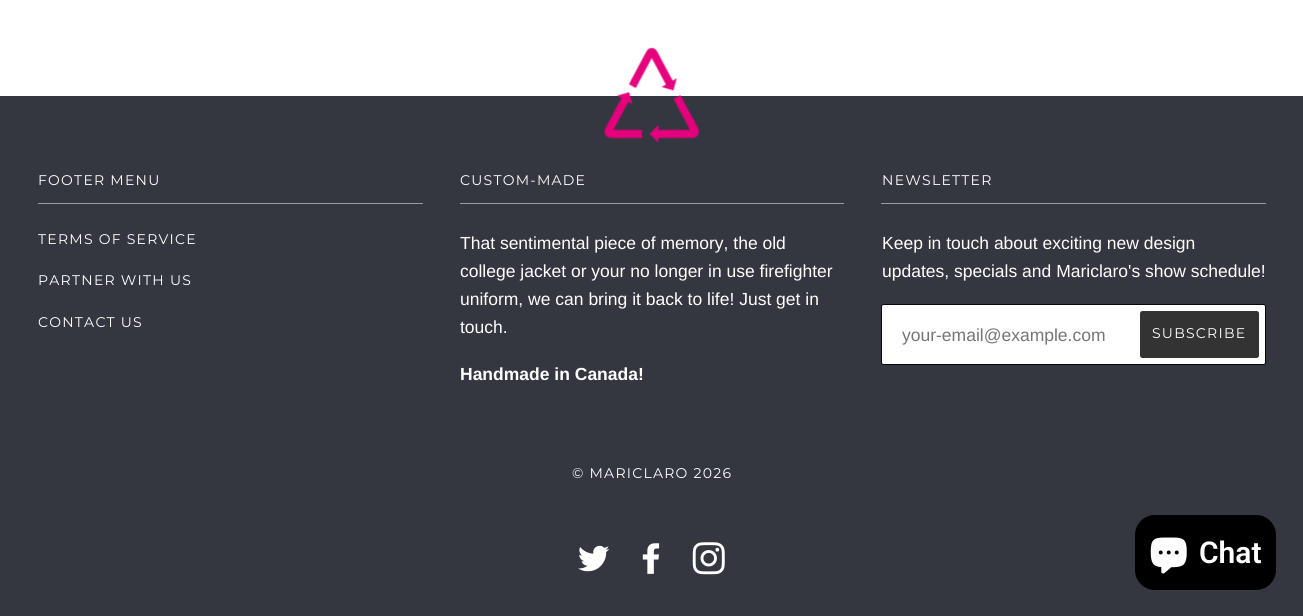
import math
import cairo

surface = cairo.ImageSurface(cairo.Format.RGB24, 1303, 616)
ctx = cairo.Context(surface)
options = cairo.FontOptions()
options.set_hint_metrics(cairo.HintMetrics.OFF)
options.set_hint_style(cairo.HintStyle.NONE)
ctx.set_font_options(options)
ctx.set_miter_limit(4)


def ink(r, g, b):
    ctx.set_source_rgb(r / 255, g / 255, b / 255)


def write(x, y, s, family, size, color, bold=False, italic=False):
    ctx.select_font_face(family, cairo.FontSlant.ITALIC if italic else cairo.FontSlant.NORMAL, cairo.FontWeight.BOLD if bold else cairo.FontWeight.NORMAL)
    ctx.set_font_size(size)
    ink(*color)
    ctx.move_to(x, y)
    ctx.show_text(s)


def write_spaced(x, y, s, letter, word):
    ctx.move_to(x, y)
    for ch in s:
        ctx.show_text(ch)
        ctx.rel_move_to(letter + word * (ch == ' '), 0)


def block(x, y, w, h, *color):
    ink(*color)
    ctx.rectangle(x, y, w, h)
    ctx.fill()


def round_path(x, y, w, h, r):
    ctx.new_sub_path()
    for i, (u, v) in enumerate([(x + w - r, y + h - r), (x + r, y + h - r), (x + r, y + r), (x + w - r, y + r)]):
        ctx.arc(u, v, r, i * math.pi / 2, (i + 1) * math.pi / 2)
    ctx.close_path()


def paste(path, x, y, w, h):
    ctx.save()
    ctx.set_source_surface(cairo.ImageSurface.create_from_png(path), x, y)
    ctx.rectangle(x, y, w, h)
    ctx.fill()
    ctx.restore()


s1 = dict(family="Liberation Sans", size=17.5, color=(255, 255, 255))
s2 = dict(family="Liberation Sans", size=17.5, color=(255, 255, 255), bold=True)
s3 = dict(family="Liberation Sans", size=17.5, color=(117, 117, 117))
s4 = dict(family="Roboto SemiBold", size=30, color=(255, 255, 255))

ink(255, 255, 255)
ctx.paint()
block(0, 96, 1303, 520, 52, 55, 64)
paste("pic1.png", 604, 47, 96, 96)
ctx.select_font_face("Montserrat Thin")
ctx.set_font_size(14)
ink(255, 255, 255)
write_spaced(38, 185, "FOOTER MENU", 1.25, 0)
block(38, 203, 385, 1, 154, 155, 160)
ink(255, 255, 255)
write_spaced(38, 244, "TERMS OF SERVICE", 1.25, 0)
write_spaced(38, 285, "PARTNER WITH US", 1.25, 0)
write_spaced(38, 327, "CONTACT US", 1.25, 0)
write_spaced(460, 185, "CUSTOM-MADE", 1.25, 0)
block(460, 203, 384, 1, 154, 155, 160)
write(460, 249, "That sentimental piece of memory, the old", **s1)
write(460, 277, "college jacket or your no longer in use firefighter", **s1)
write(460, 305, "uniform, we can bring it back to life! Just get in", **s1)
write(460, 333, "touch.", **s1)
write(460, 380, "Handmade in Canada!", **s2)
ctx.select_font_face("Montserrat Thin")
ctx.set_font_size(14)
write_spaced(882, 185, "NEWSLETTER", 1.25, 0)
block(881, 203, 385, 1, 154, 155, 160)
write(882, 249, "Keep in touch about exciting new design", **s1)
write(882, 277, "updates, specials and Mariclaro's show schedule!", **s1)
round_path(881.5, 304.5, 384, 60, 2)
ctx.fill_preserve()
ink(6, 7, 8)
ctx.set_line_width(1)
ctx.stroke()
write(902, 341, "your-email@example.com", **s3)
ink(51, 51, 51)
round_path(1140, 311, 119, 47, 2.5)
ctx.fill()
ctx.select_font_face("Montserrat Thin")
ctx.set_font_size(14)
ink(255, 255, 255)
write_spaced(1152, 338, "SUBSCRIBE", 1.25, 0)
write_spaced(572, 478, "© MARICLARO 2026", 1.25, 0)
paste("pic2.png", 578, 545, 31, 27)
paste("pic3.png", 642, 543, 18, 31)
paste("pic4.png", 692, 542, 33, 33)
ink(0, 0, 0)
round_path(1135, 515, 141, 75, 20)
ctx.fill()
paste("pic5.png", 1150, 537, 37, 37)
write(1199, 563, "Chat", **s4)
surface.write_to_png("screenshot.png")
